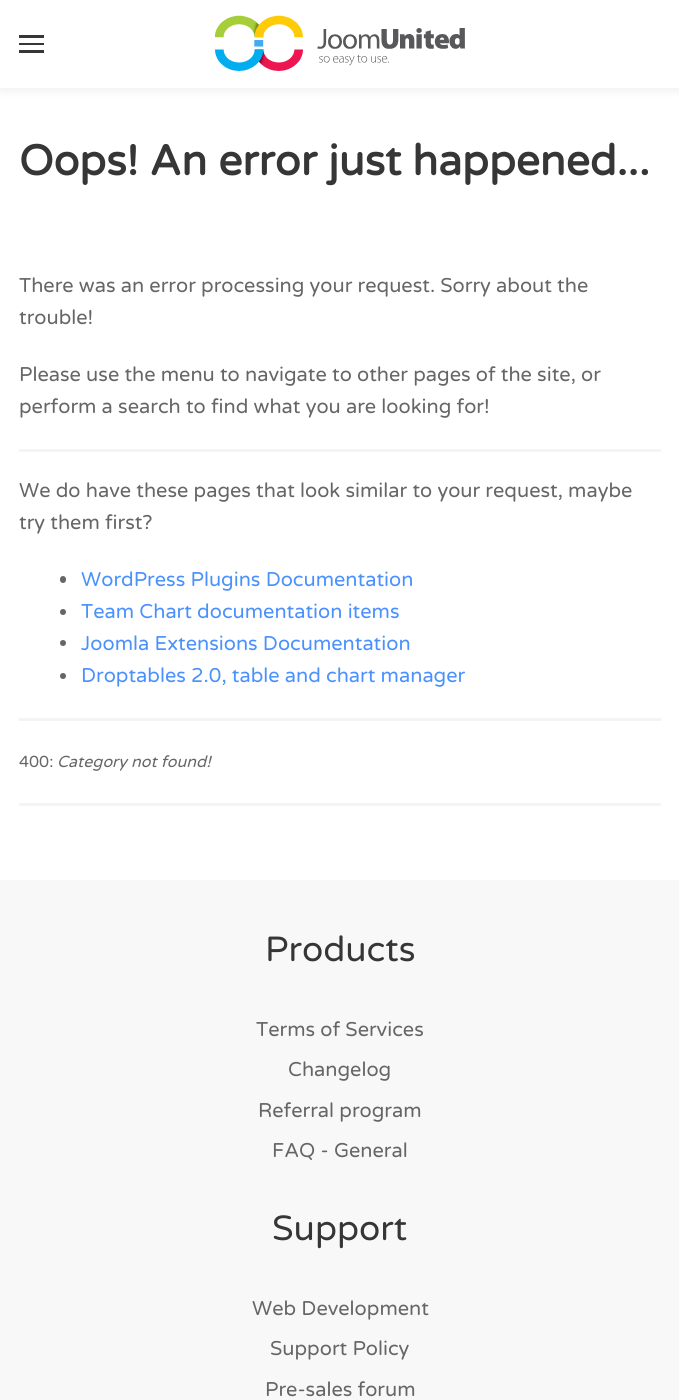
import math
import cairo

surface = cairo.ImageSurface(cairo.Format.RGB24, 679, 1400)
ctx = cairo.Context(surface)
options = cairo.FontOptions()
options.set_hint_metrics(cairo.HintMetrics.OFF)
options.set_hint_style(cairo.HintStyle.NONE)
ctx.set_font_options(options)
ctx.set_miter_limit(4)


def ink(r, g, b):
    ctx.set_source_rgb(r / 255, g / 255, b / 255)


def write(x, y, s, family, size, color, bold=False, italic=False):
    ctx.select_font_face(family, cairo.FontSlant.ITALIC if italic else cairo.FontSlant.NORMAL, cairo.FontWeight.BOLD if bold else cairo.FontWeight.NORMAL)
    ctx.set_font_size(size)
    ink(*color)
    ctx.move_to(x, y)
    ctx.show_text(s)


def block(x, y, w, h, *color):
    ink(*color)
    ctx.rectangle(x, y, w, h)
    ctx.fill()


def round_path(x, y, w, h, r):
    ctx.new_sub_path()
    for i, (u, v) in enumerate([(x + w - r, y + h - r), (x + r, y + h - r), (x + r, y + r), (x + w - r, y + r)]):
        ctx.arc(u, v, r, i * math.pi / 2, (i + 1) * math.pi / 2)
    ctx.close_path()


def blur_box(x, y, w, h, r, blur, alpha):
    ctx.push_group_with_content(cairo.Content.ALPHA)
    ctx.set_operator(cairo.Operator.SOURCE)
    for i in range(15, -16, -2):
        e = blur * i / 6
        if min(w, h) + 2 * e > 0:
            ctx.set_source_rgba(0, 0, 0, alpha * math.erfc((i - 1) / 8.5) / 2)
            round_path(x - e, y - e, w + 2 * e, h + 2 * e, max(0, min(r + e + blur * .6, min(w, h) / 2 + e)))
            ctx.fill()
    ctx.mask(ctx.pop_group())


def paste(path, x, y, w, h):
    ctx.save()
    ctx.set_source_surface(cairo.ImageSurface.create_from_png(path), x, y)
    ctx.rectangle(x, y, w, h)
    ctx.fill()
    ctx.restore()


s1 = dict(family="Varela Round", size=42.5, color=(54, 54, 54), bold=True)
s2 = dict(family="Varela Round", size=20, color=(102, 102, 102))
s3 = dict(family="Varela Round", size=20, color=(74, 145, 253))
s4 = dict(family="Varela Round", size=16, color=(102, 102, 102))
s5 = dict(family="Varela Round", size=16, color=(102, 102, 102), italic=True)
s6 = dict(family="Varela Round", size=35, color=(54, 54, 54))

ink(255, 255, 255)
ctx.paint()
ink(0, 0, 0)
blur_box(0, 1, 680, 88, 0, 6, 0.08)
block(0, 0, 679, 88, 255, 255, 255)
block(19, 35, 25, 3, 54, 54, 54)
block(19, 43, 25, 2, 54, 54, 54)
block(19, 50, 25, 3, 54, 54, 54)
paste("pic1.png", 215, 15, 250, 56)
write(19, 175, "Oops! An error just happened...", **s1)
write(19, 292, "There was an error processing your request. Sorry about the", **s2)
write(19, 324, "trouble!", **s2)
write(19, 381, "Please use the menu to navigate to other pages of the site, or", **s2)
write(19, 413, "perform a search to find what you are looking for!", **s2)
block(19, 449, 642, 3, 244, 244, 244)
write(19, 497, "We do have these pages that look similar to your request, maybe", **s2)
write(19, 529, "try them first?", **s2)
round_path(60, 576, 6, 7, 3)
ctx.fill()
write(81, 586, "WordPress Plugins Documentation", **s3)
ink(102, 102, 102)
ctx.new_path()
ctx.arc(63, 612, 3, 0, 2 * math.pi)
ctx.fill()
write(81, 618, "Team Chart documentation items", **s3)
ink(102, 102, 102)
ctx.new_path()
ctx.arc(63, 643, 3, 0, 2 * math.pi)
ctx.fill()
write(81, 650, "Joomla Extensions Documentation", **s3)
ink(102, 102, 102)
ctx.new_path()
ctx.arc(63, 676, 3, 0, 2 * math.pi)
ctx.fill()
write(81, 682, "Droptables 2.0, table and chart manager", **s3)
block(19, 718, 642, 3, 244, 244, 244)
write(19, 767, "400:", **s4)
write(57, 767, "Category not found!", **s5)
block(19, 803, 642, 3, 244, 244, 244)
block(0, 880, 679, 520, 248, 248, 248)
write(265, 961, "Products", **s6)
write(256, 1036, "Terms of Services", **s2)
write(288, 1076, "Changelog", **s2)
write(258, 1117, "Referral program", **s2)
write(272, 1157, "FAQ - General", **s2)
write(272, 1240, "Support", **s6)
write(252, 1315, "Web Development", **s2)
write(270, 1355, "Support Policy", **s2)
write(265, 1396, "Pre-sales forum", **s2)
surface.write_to_png("screenshot.png")
